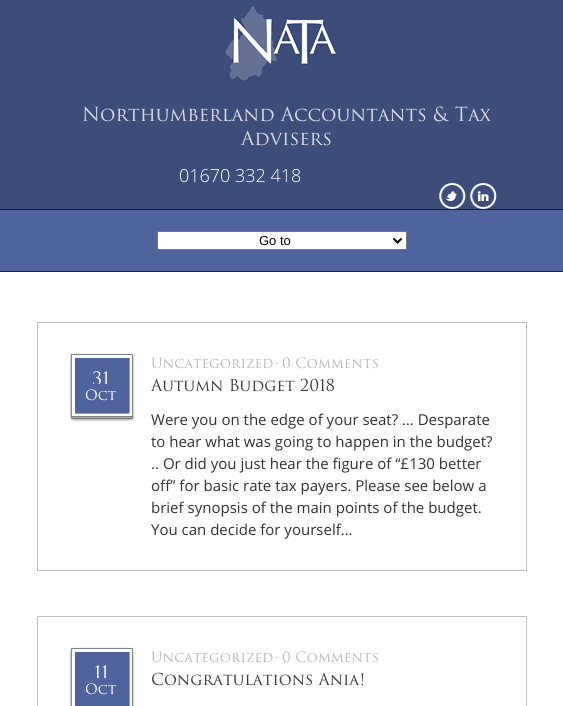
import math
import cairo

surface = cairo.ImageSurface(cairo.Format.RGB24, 563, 706)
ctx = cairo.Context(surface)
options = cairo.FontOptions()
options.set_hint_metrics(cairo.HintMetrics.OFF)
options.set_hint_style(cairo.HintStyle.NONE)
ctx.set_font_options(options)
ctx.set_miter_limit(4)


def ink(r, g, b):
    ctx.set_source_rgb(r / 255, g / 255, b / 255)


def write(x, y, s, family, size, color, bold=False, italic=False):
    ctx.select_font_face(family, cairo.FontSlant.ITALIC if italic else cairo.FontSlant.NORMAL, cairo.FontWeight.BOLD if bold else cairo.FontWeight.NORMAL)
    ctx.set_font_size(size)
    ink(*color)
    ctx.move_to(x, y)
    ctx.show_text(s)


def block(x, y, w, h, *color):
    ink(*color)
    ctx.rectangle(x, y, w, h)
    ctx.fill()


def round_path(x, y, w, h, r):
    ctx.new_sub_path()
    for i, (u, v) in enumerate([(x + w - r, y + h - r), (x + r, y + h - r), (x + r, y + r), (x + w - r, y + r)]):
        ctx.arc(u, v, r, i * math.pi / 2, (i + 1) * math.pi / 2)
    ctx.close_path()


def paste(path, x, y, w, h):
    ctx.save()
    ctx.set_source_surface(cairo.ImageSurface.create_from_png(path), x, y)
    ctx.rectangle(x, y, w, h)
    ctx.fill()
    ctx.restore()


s1 = dict(family="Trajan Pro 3", size=19, color=(216, 219, 228))
s2 = dict(family="Open Sans Light", size=18, color=(255, 255, 255))
s3 = dict(family="Liberation Sans", size=13, color=(0, 0, 0))
s4 = dict(family="Trajan Pro 3", size=18, color=(255, 255, 255))
s5 = dict(family="Trajan Pro 3", size=14, color=(255, 255, 255))
s6 = dict(family="Trajan Pro 3", size=14, color=(185, 185, 185))
s7 = dict(family="Trajan Pro 3", size=16, color=(58, 58, 58))
s8 = dict(family="Open Sans", size=15, color=(50, 50, 50))

ink(255, 255, 255)
ctx.paint()
block(0, 0, 563, 209, 60, 77, 121)
block(0, 209, 563, 1, 31, 28, 45)
paste("pic1.png", 225, 6, 112, 75)
write(82, 121, "Northumberland Accountants & Tax", **s1)
write(241, 145, "Advisers", **s1)
write(179, 182, "01670 332 418", **s2)
paste("pic2.png", 439, 183, 27, 26)
paste("pic3.png", 445, 191, 12, 10)
paste("pic4.png", 470, 183, 27, 26)
paste("pic5.png", 477, 191, 12, 10)
block(0, 210, 563, 61, 79, 100, 157)
block(0, 271, 563, 1, 31, 28, 45)
ink(255, 255, 255)
round_path(157.5, 231.5, 249, 18, 1.5)
ctx.fill_preserve()
ink(118, 118, 118)
ctx.set_line_width(1)
ctx.stroke()
ctx.new_path()
ctx.move_to(393.5, 238.5)
ctx.line_to(397.5, 242.5)
ctx.line_to(401.5, 238.5)
ink(0, 0, 0)
ctx.set_line_width(2)
ctx.stroke()
write(259, 245, "Go to", **s3)
ctx.rectangle(37.5, 322.5, 489, 248)
ink(192, 192, 192)
ctx.set_line_width(1)
ctx.stroke()
paste("pic6.png", 69, 353, 66, 69)
ctx.save()
ctx.rectangle(78, 364, 47, 20)
ctx.clip()
write(92, 385, "31", **s4)
ctx.restore()
write(85, 400, "Oct", **s5)
write(151, 368, "Uncategorized", **s6)
write(275, 368, "-", **s6)
write(282, 368, "0 Comments", **s6)
write(151, 391, "Autumn Budget 2018", **s7)
write(151, 425, "Were you on the edge of your seat? … Desparate", **s8)
write(151, 447, "to hear what was going to happen in the budget?", **s8)
write(151, 469, ".. Or did you just hear the figure of “£130 better", **s8)
write(151, 491, "off” for basic rate tax payers. Please see below a", **s8)
write(151, 513, "brief synopsis of the main points of the budget.", **s8)
write(151, 535, "You can decide for yourself…", **s8)
ctx.rectangle(37.5, 616.5, 489, 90)
ink(192, 192, 192)
ctx.stroke()
paste("pic7.png", 69, 647, 66, 59)
ctx.save()
ctx.rectangle(78, 658, 47, 20)
ctx.clip()
write(94, 679, "11", **s4)
ctx.restore()
write(85, 694, "Oct", **s5)
write(151, 662, "Uncategorized", **s6)
write(275, 662, "-", **s6)
write(282, 662, "0 Comments", **s6)
write(151, 685, "Congratulations Ania!", **s7)
surface.write_to_png("screenshot.png")
